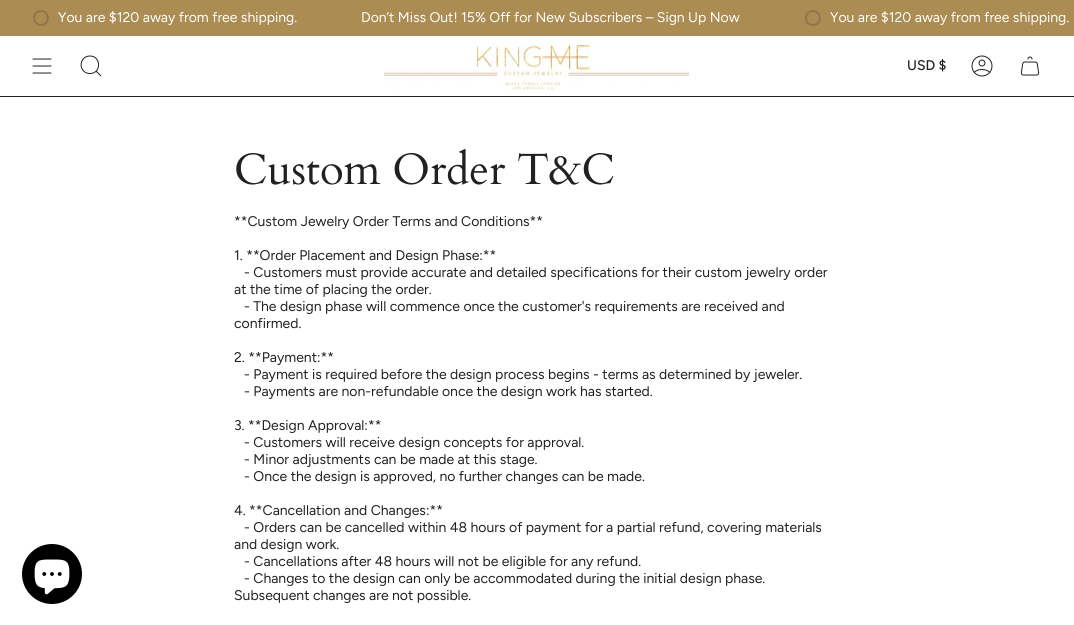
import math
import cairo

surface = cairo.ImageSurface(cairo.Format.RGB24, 1074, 625)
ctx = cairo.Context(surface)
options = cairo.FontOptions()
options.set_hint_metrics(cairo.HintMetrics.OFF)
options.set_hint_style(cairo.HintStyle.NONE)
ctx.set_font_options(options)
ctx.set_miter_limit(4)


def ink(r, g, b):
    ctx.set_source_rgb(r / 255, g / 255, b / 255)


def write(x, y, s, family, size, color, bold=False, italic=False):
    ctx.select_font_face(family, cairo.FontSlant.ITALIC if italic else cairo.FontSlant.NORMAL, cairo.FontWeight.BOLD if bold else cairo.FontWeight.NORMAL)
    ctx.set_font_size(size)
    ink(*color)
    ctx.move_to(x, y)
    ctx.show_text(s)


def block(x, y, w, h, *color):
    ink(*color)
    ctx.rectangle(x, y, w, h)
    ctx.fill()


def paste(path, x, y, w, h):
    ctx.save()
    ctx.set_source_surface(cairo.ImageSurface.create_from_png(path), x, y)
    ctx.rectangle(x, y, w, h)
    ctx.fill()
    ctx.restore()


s1 = dict(family="Figtree", size=14, color=(255, 255, 255))
s2 = dict(family="Figtree Medium", size=14, color=(33, 33, 33))
s3 = dict(family="Cardo", size=43.75, color=(33, 33, 33))
s4 = dict(family="Figtree", size=14, color=(33, 33, 33))

ink(255, 255, 255)
ctx.paint()
ink(0, 0, 0)
ctx.arc(52, 574, 30, 0, 2 * math.pi)
ctx.fill()
paste("pic1.png", 34, 559, 36, 36)
block(0, 0, 1074, 36, 171, 140, 82)
ctx.new_path()
ctx.move_to(41, 11)
ctx.curve_to(32, 11, 32, 25, 41, 25)
ctx.curve_to(50, 25, 50, 11, 41, 11)
ctx.close_path()
ink(143, 119, 72)
ctx.stroke()
write(58, 22, "You are $120 away from free shipping.", **s1)
write(361, 22, "Don’t Miss Out! 15% Off for New Subscribers – Sign Up Now", **s1)
ctx.new_path()
ctx.move_to(813, 11)
ctx.curve_to(803.5, 11, 803.5, 25, 813, 25)
ctx.curve_to(822, 25, 822, 11, 813, 11)
ctx.close_path()
ink(143, 119, 72)
ctx.stroke()
write(830, 22, "You are $120 away from free shipping.", **s1)
ctx.new_path()
ctx.move_to(33, 59)
ctx.line_to(51, 59)
ctx.move_to(33, 66)
ctx.line_to(51, 66)
ctx.move_to(33, 73)
ctx.line_to(51, 73)
ink(33, 33, 33)
ctx.set_line_width(1)
ctx.set_line_cap(cairo.LineCap.ROUND)
ctx.set_line_join(cairo.LineJoin.ROUND)
ctx.stroke()
ctx.new_path()
ctx.move_to(90, 56)
ctx.curve_to(101.5, 56, 101.5, 74, 89.5, 73.5)
ctx.curve_to(78, 73, 78.5, 56, 90, 56)
ctx.close_path()
ctx.move_to(96, 71)
ctx.line_to(101, 76)
ctx.set_line_cap(cairo.LineCap.BUTT)
ctx.set_line_join(cairo.LineJoin.MITER)
ctx.stroke()
paste("pic2.png", 384, 41, 305, 50)
write(907, 70, "USD $", **s2)
paste("pic3.png", 971, 55, 22, 22)
paste("pic4.png", 1020, 56, 20, 20)
block(0, 96, 1074, 1, 33, 33, 33)
write(234, 184, "Custom Order T&C", **s3)
write(234, 226, "**Custom Jewelry Order Terms and Conditions**", **s4)
write(234, 260, "1. **Order Placement and Design Phase:**", **s4)
write(244, 277, "- Customers must provide accurate and detailed specifications for their custom jewelry order", **s4)
write(234, 294, "at the time of placing the order.", **s4)
write(244, 311, "- The design phase will commence once the customer's requirements are received and", **s4)
write(234, 328, "confirmed.", **s4)
write(234, 362, "2. **Payment:**", **s4)
write(244, 379, "- Payment is required before the design process begins - terms as determined by jeweler.", **s4)
write(244, 396, "- Payments are non-refundable once the design work has started.", **s4)
write(234, 430, "3. **Design Approval:**", **s4)
write(244, 447, "- Customers will receive design concepts for approval.", **s4)
write(244, 464, "- Minor adjustments can be made at this stage.", **s4)
write(244, 481, "- Once the design is approved, no further changes can be made.", **s4)
write(234, 515, "4. **Cancellation and Changes:**", **s4)
write(244, 532, "- Orders can be cancelled within 48 hours of payment for a partial refund, covering materials", **s4)
write(234, 549, "and design work.", **s4)
write(244, 566, "- Cancellations after 48 hours will not be eligible for any refund.", **s4)
write(244, 583, "- Changes to the design can only be accommodated during the initial design phase.", **s4)
write(234, 600, "Subsequent changes are not possible.", **s4)
surface.write_to_png("screenshot.png")
